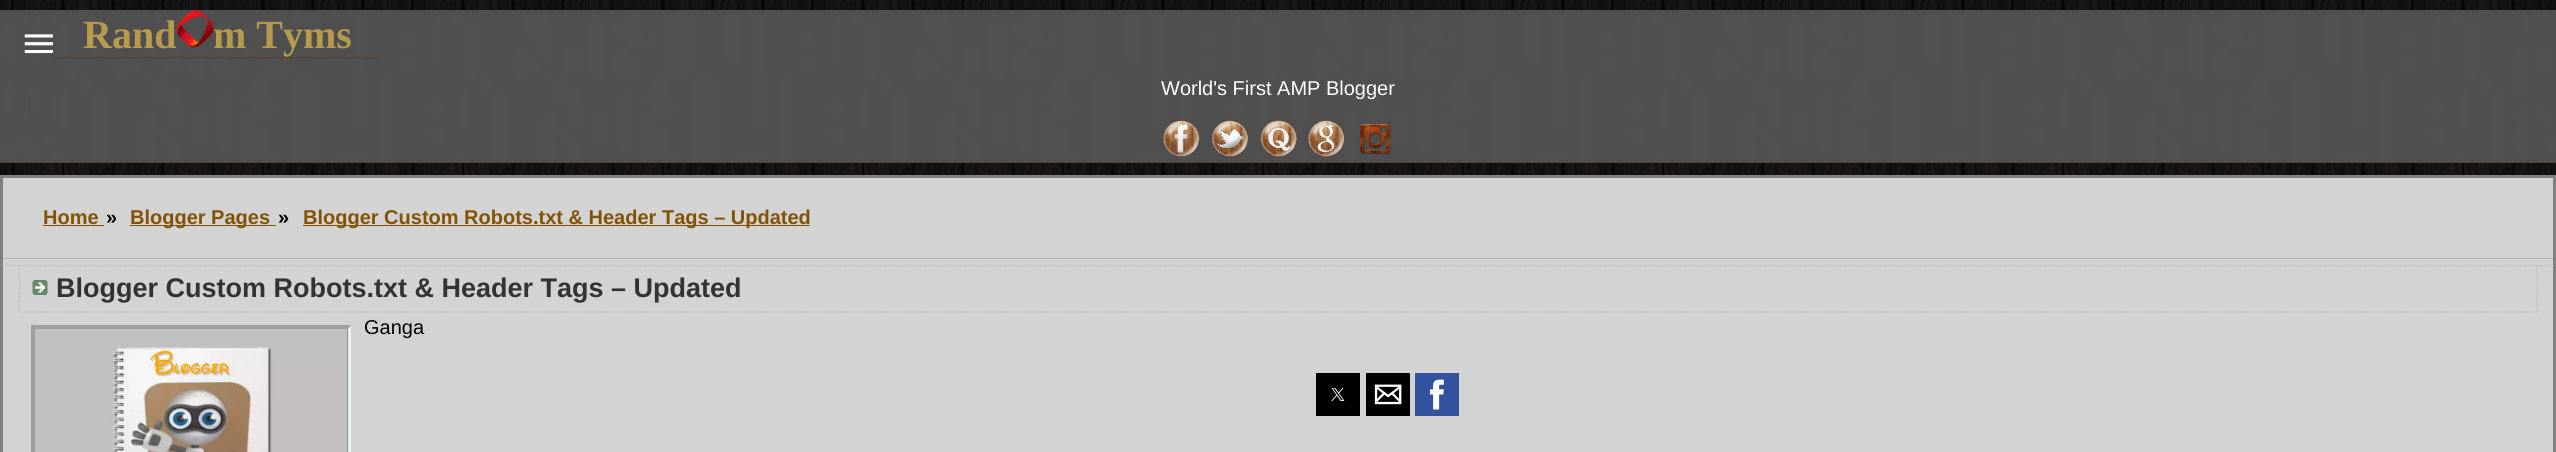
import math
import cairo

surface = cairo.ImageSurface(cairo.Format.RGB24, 2556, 452)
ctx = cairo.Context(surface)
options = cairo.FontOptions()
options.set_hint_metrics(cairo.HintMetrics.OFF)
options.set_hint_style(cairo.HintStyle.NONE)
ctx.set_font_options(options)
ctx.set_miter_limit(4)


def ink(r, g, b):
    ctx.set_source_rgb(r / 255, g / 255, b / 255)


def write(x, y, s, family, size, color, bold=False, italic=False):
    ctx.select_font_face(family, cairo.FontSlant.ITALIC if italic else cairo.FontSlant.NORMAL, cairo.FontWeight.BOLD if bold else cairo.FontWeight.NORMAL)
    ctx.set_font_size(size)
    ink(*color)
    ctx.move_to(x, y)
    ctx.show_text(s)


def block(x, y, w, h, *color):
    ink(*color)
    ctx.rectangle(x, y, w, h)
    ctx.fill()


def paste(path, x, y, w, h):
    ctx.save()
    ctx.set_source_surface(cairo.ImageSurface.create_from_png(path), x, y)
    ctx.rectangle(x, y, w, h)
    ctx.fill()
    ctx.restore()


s1 = dict(family="Liberation Serif", size=40, color=(182, 155, 76), bold=True)
s2 = dict(family="Liberation Sans", size=20, color=(255, 255, 255))
s3 = dict(family="Liberation Sans", size=20, color=(130, 82, 1), bold=True)
s4 = dict(family="Liberation Sans", size=20, color=(0, 0, 0), bold=True)
s5 = dict(family="Liberation Sans", size=27, color=(51, 51, 51), bold=True)
s6 = dict(family="Liberation Sans", size=20, color=(0, 0, 0))

ink(255, 255, 255)
ctx.paint()
paste("pic1.png", 0, 0, 2556, 175)
block(0, 162, 2556, 1, 102, 51, 0)
paste("pic2.png", 0, 10, 2556, 153)
block(28, 10, 2501, 153, 102, 51, 0)
paste("pic3.png", 27, 10, 2502, 153)
block(55, 57, 325, 1, 102, 51, 0)
paste("pic4.png", 55, 10, 325, 48)
paste("pic5.png", 24, 34, 29, 20)
write(83, 48, "Rand", **s1)
paste("pic6.png", 176, 10, 38, 38)
write(213, 48, "m Tyms", **s1)
block(55, 162, 2446, 1, 102, 51, 0)
paste("pic7.png", 55, 78, 2447, 85)
write(1161, 95, "World's First AMP Blogger", **s2)
paste("pic8.png", 1163, 120, 37, 37)
paste("pic9.png", 1212, 120, 36, 37)
paste("pic10.png", 1260, 120, 37, 37)
paste("pic11.png", 1308, 120, 37, 37)
paste("pic12.png", 1360, 123, 31, 32)
ink(211, 211, 211)
ctx.rectangle(1.5, 176.5, 2553, 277)
ctx.fill_preserve()
ink(128, 128, 128)
ctx.set_line_width(3)
ctx.stroke()
ctx.set_source_rgba(0, 0, 0, 0.14)
ctx.rectangle(3, 258, 2551, 1)
ctx.fill()
write(43, 224, "Home", **s3)
block(43, 225, 61, 1, 130, 82, 1)
write(106, 224, "»", **s4)
block(130, 225, 146, 1, 130, 82, 1)
write(130, 224, "Blogger Pages", **s3)
write(278, 224, "»", **s4)
block(303, 225, 507, 1, 130, 82, 1)
write(303, 224, "Blogger Custom Robots.txt & Header Tags – Updated", **s3)
ctx.new_path()
ctx.move_to(2.5, 265.5)
ctx.line_to(2554, 265.5)
ink(187, 187, 187)
ctx.set_line_width(1.2)
ctx.set_dash([1.25, 1.25])
ctx.stroke()
paste("pic13.png", 32, 280, 16, 15)
ctx.new_path()
ctx.move_to(2537, 266)
ctx.line_to(2537, 312.5)
ctx.stroke()
ctx.new_path()
ctx.move_to(19, 312)
ctx.line_to(2537.5, 312)
ctx.stroke()
ctx.new_path()
ctx.move_to(19.5, 266)
ctx.line_to(19.5, 312.5)
ctx.stroke()
write(56, 297, "Blogger Custom Robots.txt & Header Tags – Updated", **s5)
block(31, 325, 320, 127, 128, 128, 128)
ink(159, 159, 159)
ctx.new_path()
ctx.move_to(31, 325)
ctx.line_to(351, 325)
ctx.line_to(348, 329)
ctx.line_to(35, 329)
ctx.close_path()
ctx.fill()
ink(238, 238, 238)
ctx.new_path()
ctx.move_to(351, 325)
ctx.line_to(351, 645)
ctx.line_to(348, 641)
ctx.line_to(348, 329)
ctx.close_path()
ctx.fill()
ink(159, 159, 159)
ctx.new_path()
ctx.move_to(31, 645)
ctx.line_to(31, 325)
ctx.line_to(35, 329)
ctx.line_to(35, 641)
ctx.close_path()
ctx.fill()
paste("pic14.png", 35, 329, 313, 123)
write(364, 334, "Ganga", **s6)
block(1316, 373, 44, 43, 0, 0, 0)
paste("pic15.png", 1331, 388, 14, 13)
block(1366, 373, 44, 43, 0, 0, 0)
paste("pic16.png", 1374, 384, 28, 21)
block(1415, 373, 44, 43, 50, 82, 159)
paste("pic17.png", 1429, 379, 15, 31)
surface.write_to_png("screenshot.png")
